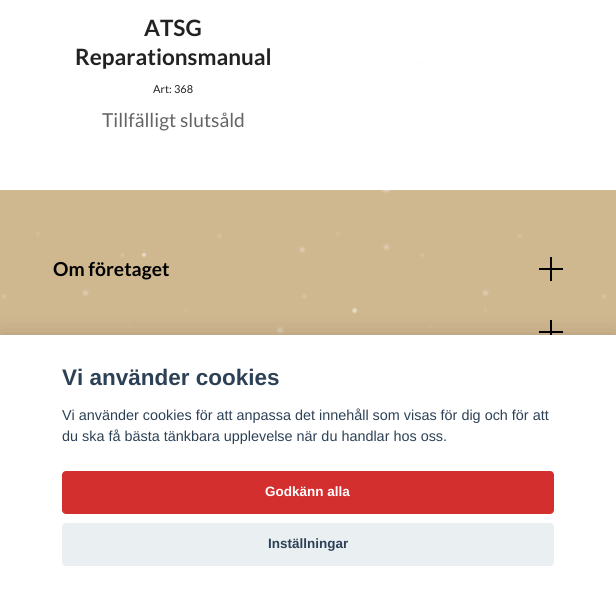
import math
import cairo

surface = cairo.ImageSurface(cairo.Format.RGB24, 616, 596)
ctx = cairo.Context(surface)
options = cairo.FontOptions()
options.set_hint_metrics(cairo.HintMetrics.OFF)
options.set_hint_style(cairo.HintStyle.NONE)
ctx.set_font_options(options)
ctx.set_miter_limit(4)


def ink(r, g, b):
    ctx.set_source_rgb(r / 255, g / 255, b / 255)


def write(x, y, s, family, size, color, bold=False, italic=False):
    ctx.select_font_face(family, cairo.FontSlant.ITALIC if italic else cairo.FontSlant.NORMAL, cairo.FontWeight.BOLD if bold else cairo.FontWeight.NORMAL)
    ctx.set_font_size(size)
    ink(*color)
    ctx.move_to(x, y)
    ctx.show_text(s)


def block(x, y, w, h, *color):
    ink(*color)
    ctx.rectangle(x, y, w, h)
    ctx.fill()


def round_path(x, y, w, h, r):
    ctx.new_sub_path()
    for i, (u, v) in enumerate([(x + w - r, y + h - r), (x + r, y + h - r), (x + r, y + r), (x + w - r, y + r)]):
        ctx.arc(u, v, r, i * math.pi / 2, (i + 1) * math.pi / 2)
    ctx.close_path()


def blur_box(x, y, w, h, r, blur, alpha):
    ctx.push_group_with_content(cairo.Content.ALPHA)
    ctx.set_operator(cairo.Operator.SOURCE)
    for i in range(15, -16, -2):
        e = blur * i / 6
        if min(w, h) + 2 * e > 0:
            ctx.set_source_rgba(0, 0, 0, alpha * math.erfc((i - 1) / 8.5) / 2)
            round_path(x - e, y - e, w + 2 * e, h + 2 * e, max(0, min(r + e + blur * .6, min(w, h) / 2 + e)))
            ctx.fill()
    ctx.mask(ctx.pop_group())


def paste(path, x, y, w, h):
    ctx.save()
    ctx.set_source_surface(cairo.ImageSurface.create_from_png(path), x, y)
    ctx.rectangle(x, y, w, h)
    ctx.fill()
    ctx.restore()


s1 = dict(family="Lato", size=22.5, color=(34, 34, 34), bold=True)
s2 = dict(family="Lato", size=11, color=(34, 34, 34))
s3 = dict(family="Lato", size=19.25, color=(100, 100, 100))
s4 = dict(family="Lato", size=19.25, color=(0, 0, 0), bold=True)
s5 = dict(family="Liberation Sans", size=22.5, color=(45, 65, 86), bold=True)
s6 = dict(family="Liberation Sans", size=14.4, color=(45, 65, 86))
s7 = dict(family="Liberation Sans", size=13.5, color=(255, 255, 255), bold=True)
s8 = dict(family="Liberation Sans", size=13.5, color=(45, 65, 86), bold=True)

ink(255, 255, 255)
ctx.paint()
write(144, 36, "ATSG", **s1)
write(75, 65, "Reparationsmanual", **s1)
write(153, 93, "Art: 368", **s2)
write(102, 127, "Tillfälligt slutsåld", **s3)
block(0, 190, 616, 145, 207, 183, 143)
write(53, 276, "Om företaget", **s4)
block(550, 257, 2, 24, 0, 0, 0)
block(539, 268, 24, 2, 0, 0, 0)
block(550, 320, 2, 15, 0, 0, 0)
block(539, 331, 24, 2, 0, 0, 0)
paste("pic1.png", 2, 49, 605, 286)
ink(2, 2, 3)
blur_box(0, 345, 616, 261, 0, 15, 0.28)
block(0, 335, 616, 261, 255, 255, 255)
write(62, 385, "Vi använder cookies", **s5)
write(62, 420, "Vi använder cookies för att anpassa det innehåll som visas för dig och för att", **s6)
write(62, 441, "du ska få bästa tänkbara upplevelse när du handlar hos oss.", **s6)
ink(211, 47, 47)
round_path(62, 471, 492, 43, 4)
ctx.fill()
write(265, 496, "Godkänn alla", **s7)
ink(234, 239, 242)
round_path(62, 523, 492, 43, 4)
ctx.fill()
write(268, 548, "Inställningar", **s8)
surface.write_to_png("screenshot.png")
